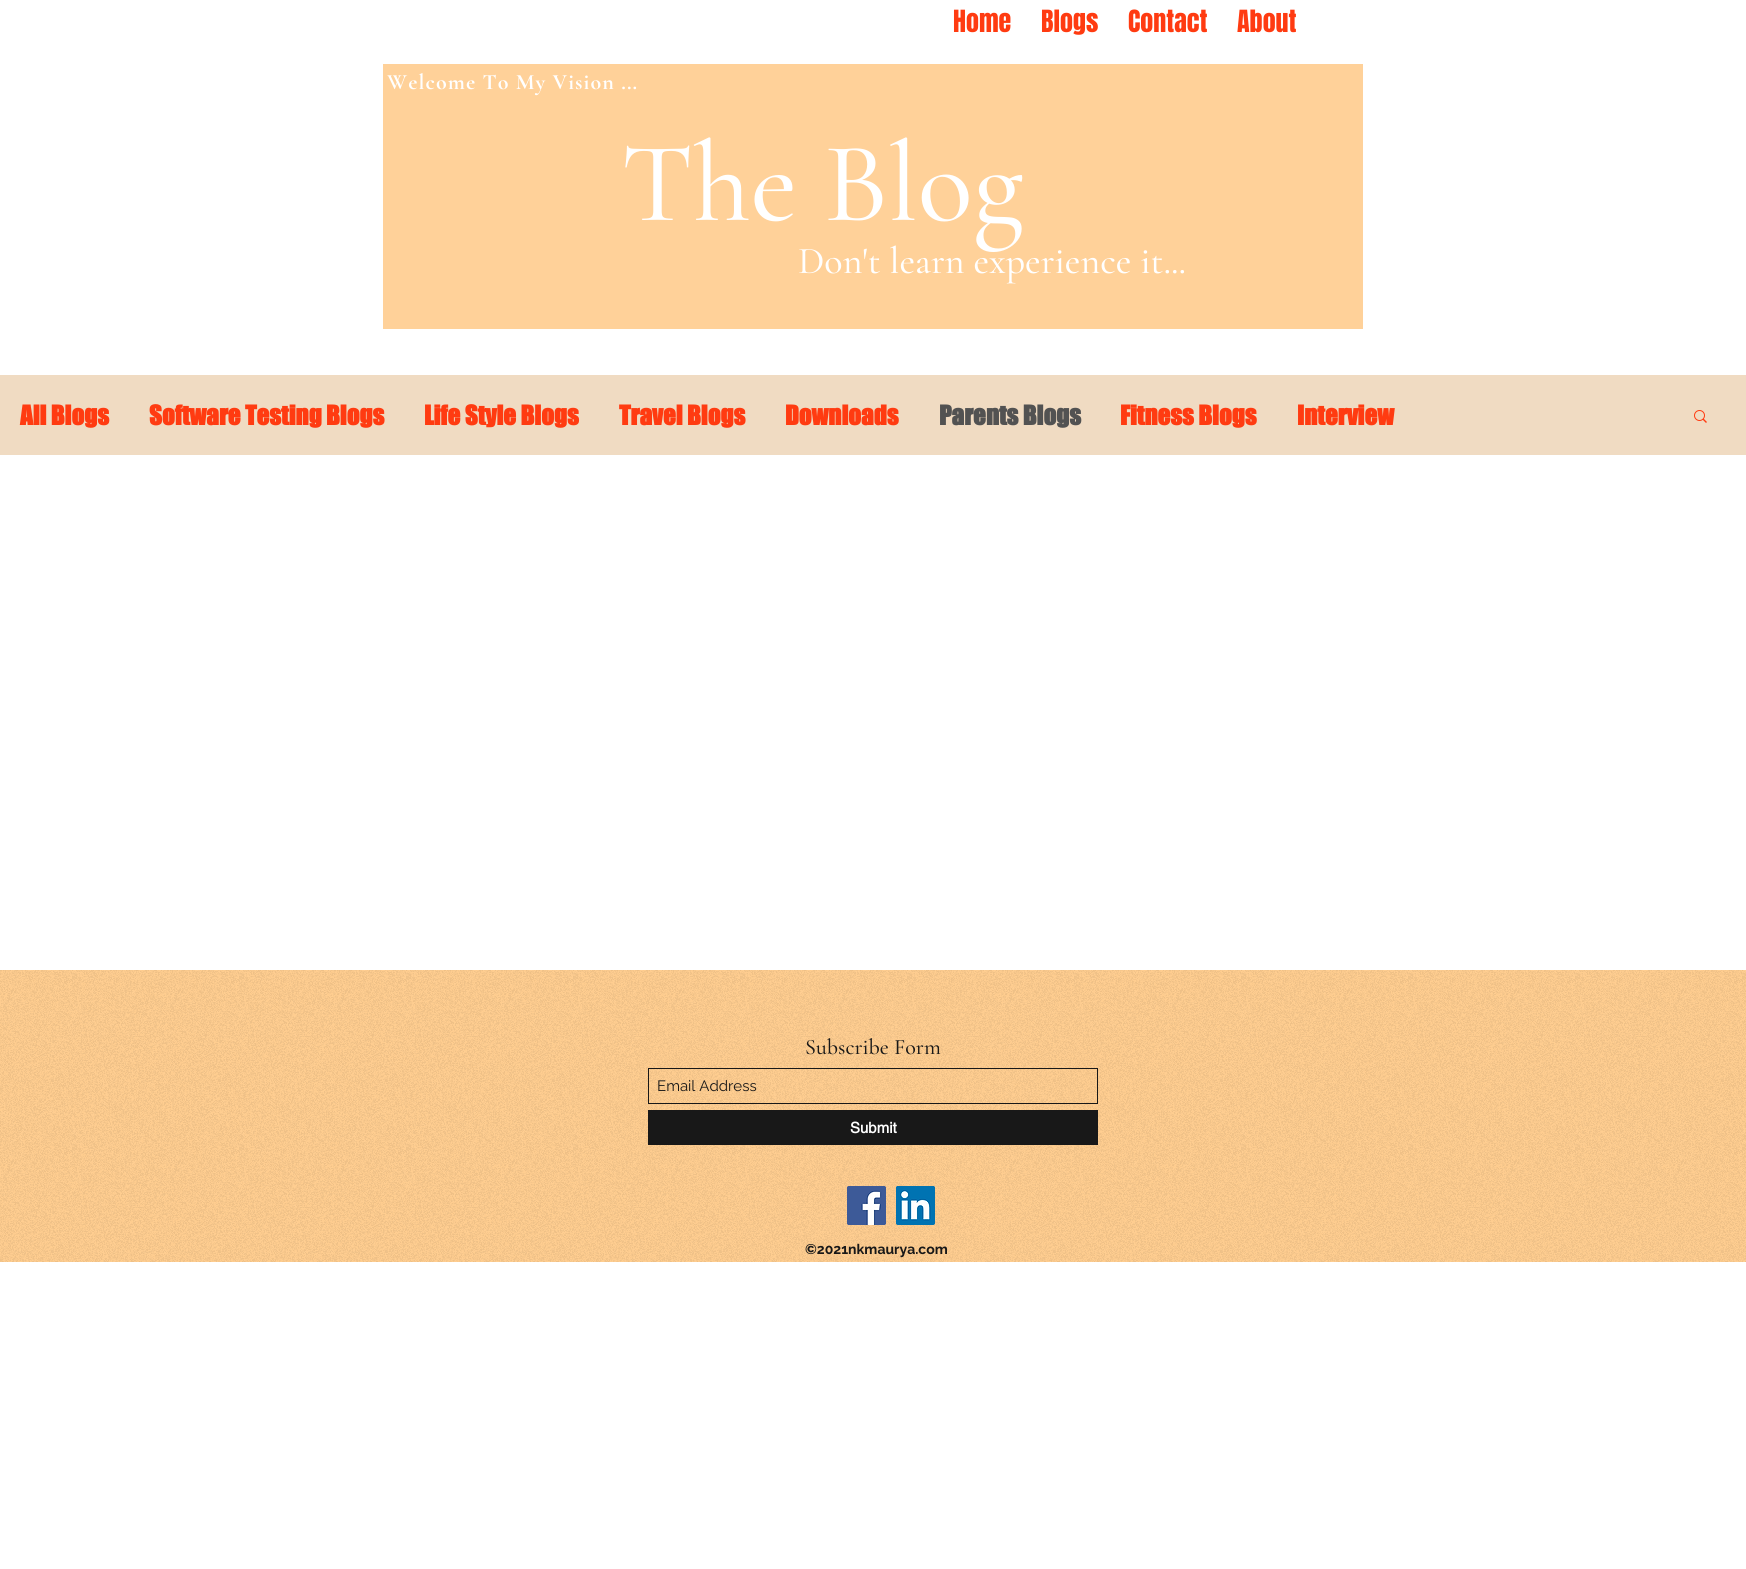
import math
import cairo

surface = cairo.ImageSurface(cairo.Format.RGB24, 1746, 1569)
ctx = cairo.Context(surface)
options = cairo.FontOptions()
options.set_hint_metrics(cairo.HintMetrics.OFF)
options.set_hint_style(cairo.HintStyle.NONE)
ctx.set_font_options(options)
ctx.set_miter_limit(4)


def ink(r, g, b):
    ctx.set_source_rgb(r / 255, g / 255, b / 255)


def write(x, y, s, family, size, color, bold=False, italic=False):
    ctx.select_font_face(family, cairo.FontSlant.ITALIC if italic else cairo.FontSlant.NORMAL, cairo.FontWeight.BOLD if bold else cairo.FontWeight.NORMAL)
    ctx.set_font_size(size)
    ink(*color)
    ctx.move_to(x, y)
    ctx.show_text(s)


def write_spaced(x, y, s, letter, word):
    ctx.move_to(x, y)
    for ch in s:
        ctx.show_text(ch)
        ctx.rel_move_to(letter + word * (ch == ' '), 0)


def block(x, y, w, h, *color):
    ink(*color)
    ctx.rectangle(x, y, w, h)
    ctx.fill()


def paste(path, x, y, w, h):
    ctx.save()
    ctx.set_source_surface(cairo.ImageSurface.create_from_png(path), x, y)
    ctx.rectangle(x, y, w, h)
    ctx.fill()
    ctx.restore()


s1 = dict(family="Anton", size=26, color=(255, 59, 17))
s2 = dict(family="Cormorant Garamond Medium", size=114, color=(255, 255, 255))
s3 = dict(family="Cormorant Garamond Medium", size=38, color=(255, 255, 255))
s4 = dict(family="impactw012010", size=25, color=(255, 59, 17), bold=True)
s5 = dict(family="impactw012010", size=25, color=(82, 82, 82), bold=True)
s6 = dict(family="Cormorant Garamond Medium", size=22, color=(24, 24, 24))
s7 = dict(family="Raleway", size=15, color=(24, 24, 24))
s8 = dict(family="helvetica", size=15, color=(255, 255, 255), bold=True)
s9 = dict(family="Raleway", size=14, color=(24, 24, 24), bold=True)

ink(255, 255, 255)
ctx.paint()
write(953, 32, "Home", **s1)
write(1041, 32, "Blogs", **s1)
write(1128, 32, "Contact", **s1)
write(1237, 32, "About", **s1)
block(383, 64, 980, 265, 255, 209, 153)
ctx.select_font_face("Cormorant Garamond", cairo.FontSlant.NORMAL, cairo.FontWeight.BOLD)
ctx.set_font_size(22)
ink(255, 255, 255)
write_spaced(387, 89, "Welcome To My Vision ...", 1.1, 0)
write(621, 220, "The Blog", **s2)
write(798, 273, "Don't learn experience it...", **s3)
block(0, 375, 1746, 80, 240, 219, 194)
write(20, 425, "All Blogs", **s4)
write(149, 425, "Software Testing Blogs", **s4)
write(424, 425, "Life Style Blogs", **s4)
write(619, 425, "Travel Blogs", **s4)
write(785, 425, "Downloads", **s4)
write(939, 425, "Parents Blogs", **s5)
write(1120, 425, "Fitness Blogs", **s4)
write(1297, 425, "Interview", **s4)
paste("pic1.png", 1694, 410, 13, 13)
block(0, 970, 1746, 292, 255, 205, 143)
paste("pic2.png", 0, 970, 1746, 292)
write(805, 1054, "Subscribe Form", **s6)
ctx.rectangle(648.5, 1068.5, 449, 35)
ctx.set_line_width(1)
ctx.stroke()
write(657, 1091, "Email Address", **s7)
block(648, 1110, 450, 35, 24, 24, 24)
write(850, 1133, "Submit", **s8)
paste("pic3.png", 847, 1186, 39, 39)
paste("pic4.png", 896, 1186, 39, 39)
write(805, 1254, "©2021nkmaurya.com", **s9)
surface.write_to_png("screenshot.png")
